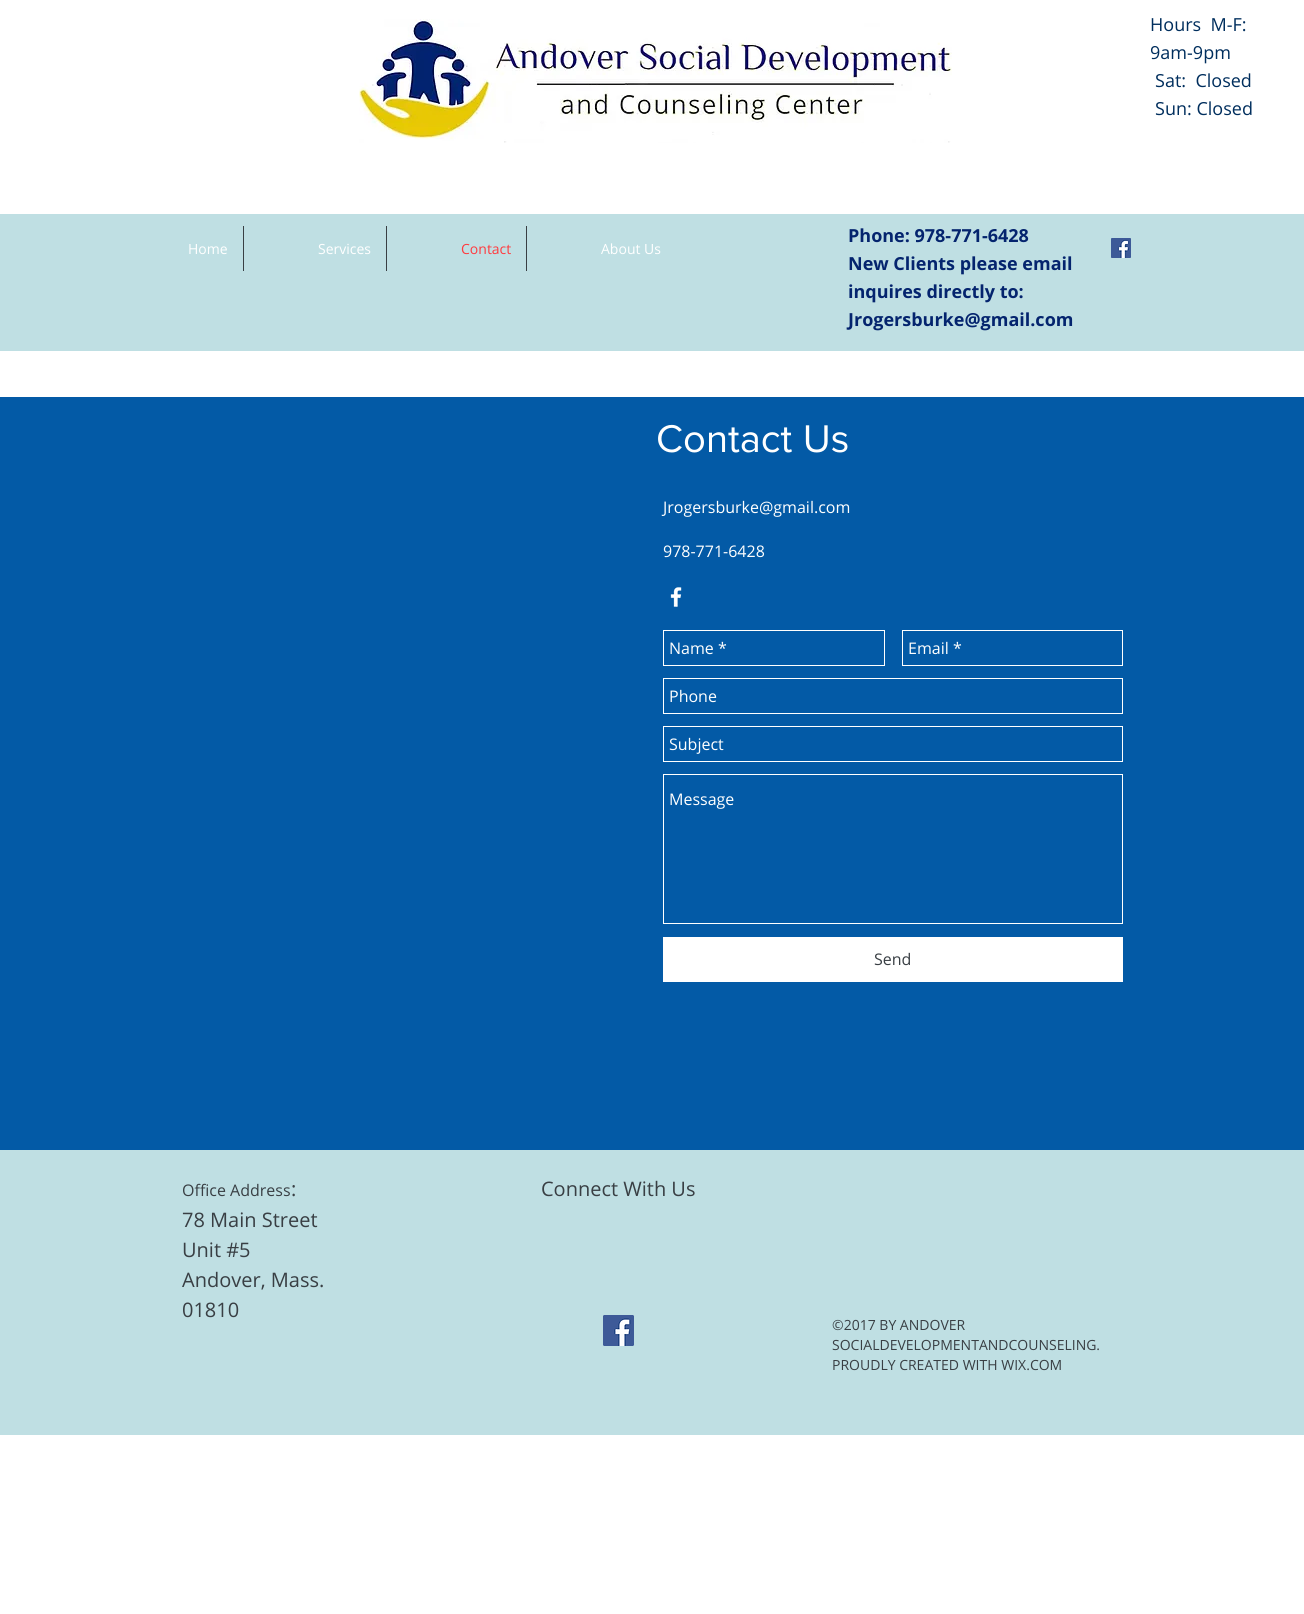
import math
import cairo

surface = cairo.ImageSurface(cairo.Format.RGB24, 1304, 1614)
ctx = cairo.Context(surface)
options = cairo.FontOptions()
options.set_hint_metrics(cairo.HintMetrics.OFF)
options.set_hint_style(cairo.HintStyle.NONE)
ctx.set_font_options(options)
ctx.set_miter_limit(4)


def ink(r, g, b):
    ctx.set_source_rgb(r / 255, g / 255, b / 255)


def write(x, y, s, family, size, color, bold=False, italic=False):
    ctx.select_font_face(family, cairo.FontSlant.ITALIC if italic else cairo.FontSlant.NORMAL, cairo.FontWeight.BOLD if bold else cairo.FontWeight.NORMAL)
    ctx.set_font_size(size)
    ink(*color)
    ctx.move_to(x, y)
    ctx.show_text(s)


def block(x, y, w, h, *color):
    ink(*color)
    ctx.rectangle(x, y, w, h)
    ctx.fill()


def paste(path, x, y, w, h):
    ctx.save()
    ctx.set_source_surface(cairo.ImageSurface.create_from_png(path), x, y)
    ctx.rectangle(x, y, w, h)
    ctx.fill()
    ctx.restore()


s1 = dict(family="Open Sans", size=18, color=(0, 46, 93))
s2 = dict(family="Open Sans", size=14, color=(255, 255, 255))
s3 = dict(family="Open Sans", size=14, color=(255, 59, 63))
s4 = dict(family="Open Sans", size=18, color=(4, 36, 110), bold=True)
s5 = dict(family="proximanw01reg", size=40, color=(255, 255, 255))
s6 = dict(family="Open Sans", size=16, color=(255, 255, 255))
s7 = dict(family="Open Sans", size=16, color=(57, 63, 68))
s8 = dict(family="Open Sans", size=20, color=(57, 63, 68))
s9 = dict(family="Open Sans", size=14, color=(57, 63, 68))

ink(255, 255, 255)
ctx.paint()
paste("pic1.png", 359, 19, 593, 124)
write(1150, 31, "Hours  M-F:", **s1)
write(1150, 59, "9am-9pm", **s1)
write(1155, 87, "Sat:  Closed", **s1)
write(1155, 115, "Sun: Closed", **s1)
block(0, 214, 1304, 137, 191, 223, 227)
write(188, 254, "Home", **s2)
block(243, 226, 1, 45, 57, 63, 68)
write(318, 254, "Services", **s2)
block(386, 226, 1, 45, 57, 63, 68)
write(461, 254, "Contact", **s3)
block(526, 226, 1, 45, 57, 63, 68)
write(601, 254, "About Us", **s2)
write(848, 242, "Phone: 978-771-6428", **s4)
write(848, 270, "New Clients please email", **s4)
write(848, 298, "inquires directly to:", **s4)
write(848, 326, "Jrogersburke@gmail.com", **s4)
paste("pic2.png", 1111, 238, 20, 20)
block(0, 397, 1304, 753, 3, 90, 166)
write(656, 452, "Contact Us", **s5)
write(663, 513, "Jrogersburke@gmail.com", **s6)
write(663, 557, "978-771-6428", **s6)
paste("pic3.png", 670, 587, 12, 20)
ctx.rectangle(663.5, 630.5, 221, 35)
ctx.set_line_width(1)
ctx.stroke()
write(669, 654, "Name *", **s6)
ctx.rectangle(902.5, 630.5, 220, 35)
ctx.stroke()
write(908, 654, "Email *", **s6)
ctx.rectangle(663.5, 678.5, 459, 35)
ctx.stroke()
write(669, 702, "Phone", **s6)
ctx.rectangle(663.5, 726.5, 459, 35)
ctx.stroke()
write(669, 750, "Subject", **s6)
ctx.rectangle(663.5, 774.5, 459, 149)
ctx.stroke()
write(669, 805, "Message", **s6)
block(663, 937, 460, 45, 255, 255, 255)
write(874, 965, "Send", **s7)
block(0, 1150, 1304, 285, 191, 223, 227)
write(182, 1196, "Office Address", **s7)
write(291, 1196, ":", **s8)
write(182, 1227, "78 Main Street", **s8)
write(182, 1257, "Unit #5", **s8)
write(182, 1287, "Andover, Mass.", **s8)
write(182, 1317, "01810", **s8)
write(541, 1196, "Connect With Us", **s8)
paste("pic4.png", 603, 1315, 31, 31)
write(832, 1330, "©2017 BY ANDOVER", **s9)
write(832, 1350, "SOCIALDEVELOPMENTANDCOUNSELING.", **s9)
write(832, 1370, "PROUDLY CREATED WITH WIX.COM", **s9)
surface.write_to_png("screenshot.png")
